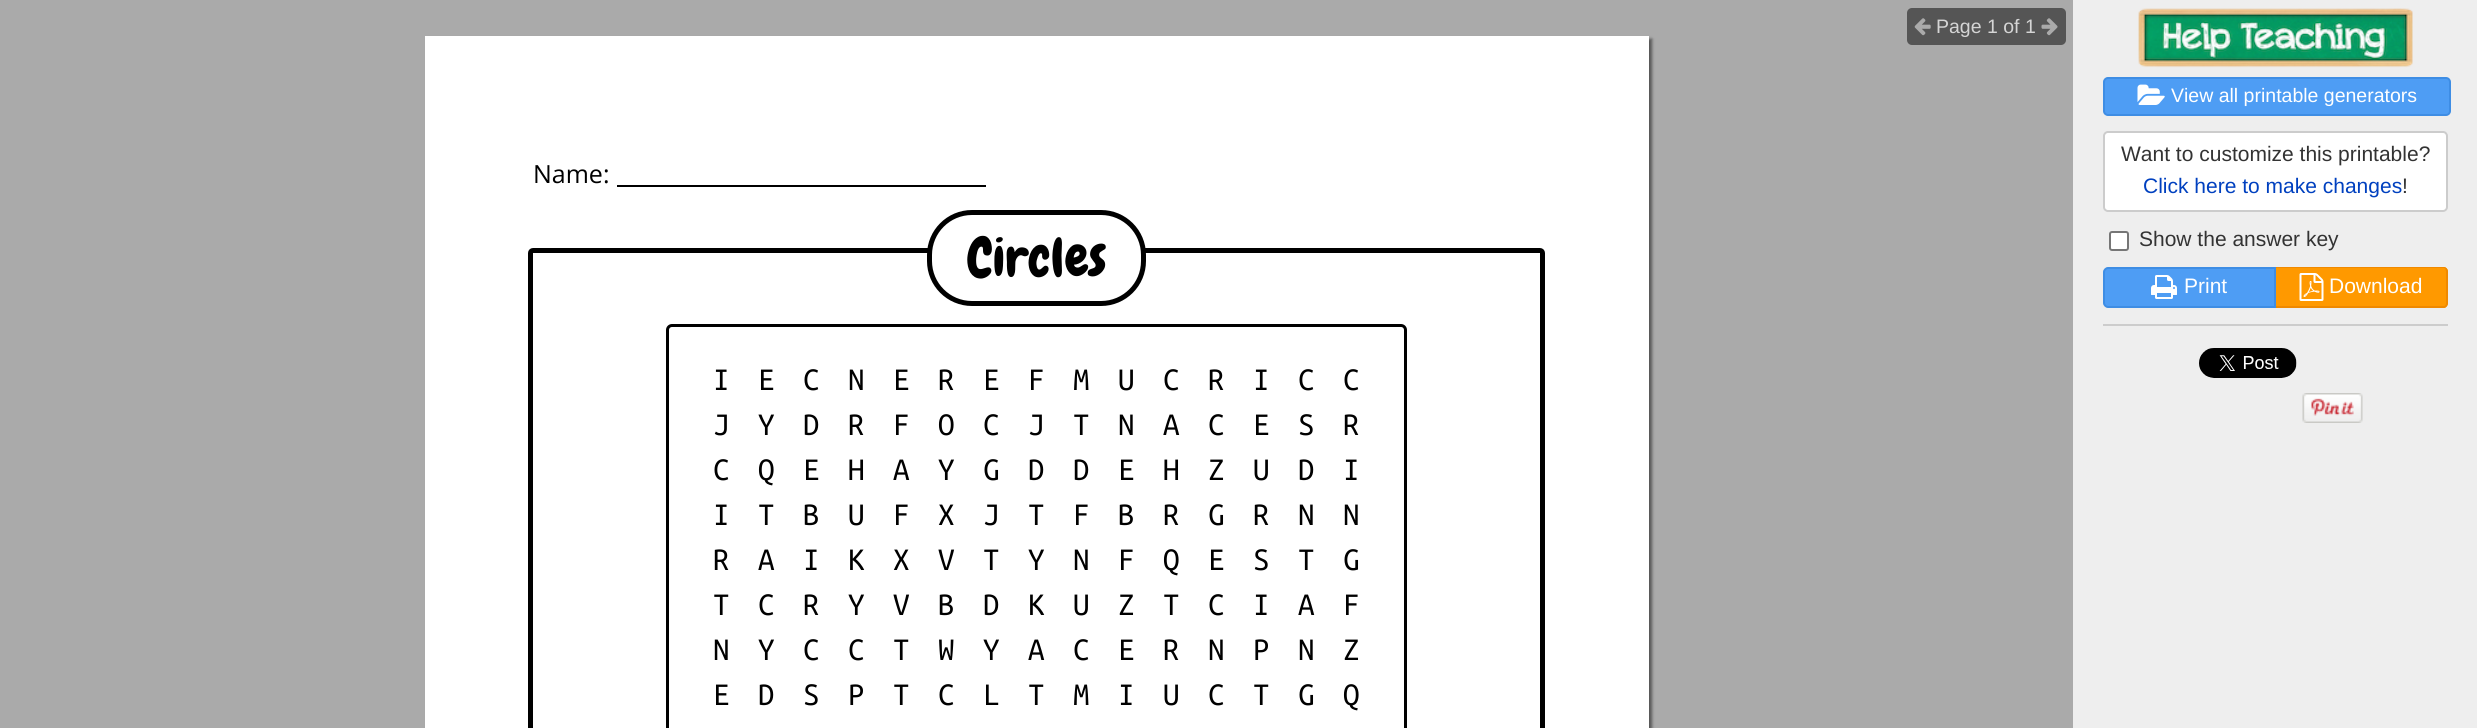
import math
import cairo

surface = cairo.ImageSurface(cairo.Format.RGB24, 2477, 728)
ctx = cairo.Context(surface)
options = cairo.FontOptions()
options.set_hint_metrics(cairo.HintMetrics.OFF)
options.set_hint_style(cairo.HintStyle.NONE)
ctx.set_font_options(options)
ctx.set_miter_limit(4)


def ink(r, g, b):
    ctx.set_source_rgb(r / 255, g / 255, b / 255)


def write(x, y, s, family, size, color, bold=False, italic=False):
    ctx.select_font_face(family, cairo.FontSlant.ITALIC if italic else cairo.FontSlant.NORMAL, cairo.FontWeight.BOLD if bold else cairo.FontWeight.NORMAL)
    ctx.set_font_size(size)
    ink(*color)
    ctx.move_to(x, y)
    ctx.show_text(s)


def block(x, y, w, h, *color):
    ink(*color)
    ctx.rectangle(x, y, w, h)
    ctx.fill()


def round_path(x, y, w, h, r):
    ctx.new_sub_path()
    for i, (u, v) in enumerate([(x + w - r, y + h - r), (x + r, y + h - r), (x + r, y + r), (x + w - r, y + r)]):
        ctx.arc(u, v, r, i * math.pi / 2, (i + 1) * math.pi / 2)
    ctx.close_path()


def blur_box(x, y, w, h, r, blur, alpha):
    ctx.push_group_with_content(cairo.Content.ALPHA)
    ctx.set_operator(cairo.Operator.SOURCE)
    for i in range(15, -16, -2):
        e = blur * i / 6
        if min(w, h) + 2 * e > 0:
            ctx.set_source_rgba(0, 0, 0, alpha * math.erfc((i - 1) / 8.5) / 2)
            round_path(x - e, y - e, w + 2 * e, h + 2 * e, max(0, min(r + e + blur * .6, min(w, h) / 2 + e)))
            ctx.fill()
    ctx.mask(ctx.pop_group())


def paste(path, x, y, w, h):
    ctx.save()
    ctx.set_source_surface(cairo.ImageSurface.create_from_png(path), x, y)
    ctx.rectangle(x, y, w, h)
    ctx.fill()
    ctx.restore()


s1 = dict(family="Liberation Sans", size=19.5, color=(213, 213, 213))
s2 = dict(family="Open Sans", size=25, color=(0, 0, 0))
s3 = dict(family="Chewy", size=54, color=(0, 0, 0))
s4 = dict(family="Ubuntu Mono", size=33, color=(0, 0, 0))
s5 = dict(family="Liberation Sans", size=19.5, color=(255, 255, 255))
s6 = dict(family="Liberation Sans", size=21, color=(51, 51, 51))
s7 = dict(family="Liberation Sans", size=21, color=(0, 64, 191))
s8 = dict(family="Liberation Sans", size=21, color=(255, 255, 255))

ink(170, 170, 170)
ctx.paint()
ink(85, 85, 85)
round_path(1907, 8, 159, 37, 5)
ctx.fill()
paste("pic1.png", 1914, 18, 17, 18)
write(1936, 33, "Page 1 of 1", **s1)
paste("pic2.png", 2041, 18, 17, 18)
ink(0, 0, 0)
blur_box(428, 39, 1224, 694, 0, 1.5, 0.5)
block(425, 36, 1224, 692, 255, 255, 255)
block(617, 185, 369, 2, 0, 0, 0)
write(533, 183, "Name:", **s2)
round_path(530.5, 250.5, 1012, 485, 2.5)
ctx.set_line_width(5)
ctx.stroke()
ink(255, 255, 255)
round_path(929.5, 212.5, 214, 91, 42.5)
ctx.fill_preserve()
ink(0, 0, 0)
ctx.stroke()
write(967, 276, "Circles", **s3)
round_path(667.5, 325.5, 738, 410, 4.5)
ctx.set_line_width(3)
ctx.stroke()
write(713, 390, "I", **s4)
write(758, 390, "E", **s4)
write(803, 390, "C", **s4)
write(848, 390, "N", **s4)
write(893, 390, "E", **s4)
write(938, 390, "R", **s4)
write(983, 390, "E", **s4)
write(1028, 390, "F", **s4)
write(1073, 390, "M", **s4)
write(1118, 390, "U", **s4)
write(1163, 390, "C", **s4)
write(1208, 390, "R", **s4)
write(1253, 390, "I", **s4)
write(1298, 390, "C", **s4)
write(1343, 390, "C", **s4)
write(713, 435, "J", **s4)
write(758, 435, "Y", **s4)
write(803, 435, "D", **s4)
write(848, 435, "R", **s4)
write(893, 435, "F", **s4)
write(938, 435, "O", **s4)
write(983, 435, "C", **s4)
write(1028, 435, "J", **s4)
write(1073, 435, "T", **s4)
write(1118, 435, "N", **s4)
write(1163, 435, "A", **s4)
write(1208, 435, "C", **s4)
write(1253, 435, "E", **s4)
write(1298, 435, "S", **s4)
write(1343, 435, "R", **s4)
write(713, 480, "C", **s4)
write(758, 480, "Q", **s4)
write(803, 480, "E", **s4)
write(848, 480, "H", **s4)
write(893, 480, "A", **s4)
write(938, 480, "Y", **s4)
write(983, 480, "G", **s4)
write(1028, 480, "D", **s4)
write(1073, 480, "D", **s4)
write(1118, 480, "E", **s4)
write(1163, 480, "H", **s4)
write(1208, 480, "Z", **s4)
write(1253, 480, "U", **s4)
write(1298, 480, "D", **s4)
write(1343, 480, "I", **s4)
write(713, 525, "I", **s4)
write(758, 525, "T", **s4)
write(803, 525, "B", **s4)
write(848, 525, "U", **s4)
write(893, 525, "F", **s4)
write(938, 525, "X", **s4)
write(983, 525, "J", **s4)
write(1028, 525, "T", **s4)
write(1073, 525, "F", **s4)
write(1118, 525, "B", **s4)
write(1163, 525, "R", **s4)
write(1208, 525, "G", **s4)
write(1253, 525, "R", **s4)
write(1298, 525, "N", **s4)
write(1343, 525, "N", **s4)
write(713, 570, "R", **s4)
write(758, 570, "A", **s4)
write(803, 570, "I", **s4)
write(848, 570, "K", **s4)
write(893, 570, "X", **s4)
write(938, 570, "V", **s4)
write(983, 570, "T", **s4)
write(1028, 570, "Y", **s4)
write(1073, 570, "N", **s4)
write(1118, 570, "F", **s4)
write(1163, 570, "Q", **s4)
write(1208, 570, "E", **s4)
write(1253, 570, "S", **s4)
write(1298, 570, "T", **s4)
write(1343, 570, "G", **s4)
write(713, 615, "T", **s4)
write(758, 615, "C", **s4)
write(803, 615, "R", **s4)
write(848, 615, "Y", **s4)
write(893, 615, "V", **s4)
write(938, 615, "B", **s4)
write(983, 615, "D", **s4)
write(1028, 615, "K", **s4)
write(1073, 615, "U", **s4)
write(1118, 615, "Z", **s4)
write(1163, 615, "T", **s4)
write(1208, 615, "C", **s4)
write(1253, 615, "I", **s4)
write(1298, 615, "A", **s4)
write(1343, 615, "F", **s4)
write(713, 660, "N", **s4)
write(758, 660, "Y", **s4)
write(803, 660, "C", **s4)
write(848, 660, "C", **s4)
write(893, 660, "T", **s4)
write(938, 660, "W", **s4)
write(983, 660, "Y", **s4)
write(1028, 660, "A", **s4)
write(1073, 660, "C", **s4)
write(1118, 660, "E", **s4)
write(1163, 660, "R", **s4)
write(1208, 660, "N", **s4)
write(1253, 660, "P", **s4)
write(1298, 660, "N", **s4)
write(1343, 660, "Z", **s4)
write(713, 705, "E", **s4)
write(758, 705, "D", **s4)
write(803, 705, "S", **s4)
write(848, 705, "P", **s4)
write(893, 705, "T", **s4)
write(938, 705, "C", **s4)
write(983, 705, "L", **s4)
write(1028, 705, "T", **s4)
write(1073, 705, "M", **s4)
write(1118, 705, "I", **s4)
write(1163, 705, "U", **s4)
write(1208, 705, "C", **s4)
write(1253, 705, "T", **s4)
write(1298, 705, "G", **s4)
write(1343, 705, "Q", **s4)
block(2073, 0, 404, 728, 238, 238, 238)
paste("pic3.png", 2138, 8, 275, 60)
ink(78, 157, 244)
round_path(2104, 78, 346, 37, 4)
ctx.fill_preserve()
ink(62, 141, 228)
ctx.set_line_width(2)
ctx.stroke()
paste("pic4.png", 2137, 84, 28, 21)
write(2171, 102, "View all printable generators", **s5)
round_path(2104, 132, 343, 79, 4)
ctx.fill_preserve()
ink(204, 204, 204)
ctx.stroke()
write(2121, 161, "Want to customize this printable?", **s6)
write(2143, 193, "Click here to make changes", **s7)
write(2402, 193, "!", **s6)
ink(255, 255, 255)
round_path(2110, 232, 18, 18, 2)
ctx.fill_preserve()
ink(118, 118, 118)
ctx.stroke()
write(2139, 246, "Show the answer key", **s6)
ink(78, 157, 244)
ctx.new_path()
ctx.move_to(2108, 268)
ctx.line_to(2275, 268)
ctx.line_to(2275, 307)
ctx.line_to(2108, 307)
ctx.curve_to(2106, 307, 2104, 305, 2104, 303)
ctx.line_to(2104, 272)
ctx.curve_to(2104, 270, 2106, 268, 2108, 268)
ctx.close_path()
ctx.fill_preserve()
ink(62, 141, 228)
ctx.stroke()
paste("pic5.png", 2151, 275, 26, 24)
write(2184, 293, "Print", **s8)
ink(255, 153, 0)
ctx.new_path()
ctx.move_to(2276, 267)
ctx.line_to(2443, 267)
ctx.curve_to(2446, 267, 2448, 269, 2448, 272)
ctx.line_to(2448, 303)
ctx.curve_to(2448, 306, 2446, 308, 2443, 308)
ctx.line_to(2276, 308)
ctx.close_path()
ctx.fill()
ink(239, 137, 0)
ctx.set_fill_rule(cairo.FillRule.EVEN_ODD)
ctx.new_path()
ctx.move_to(2276, 267)
ctx.line_to(2444, 267)
ctx.curve_to(2446, 267, 2448, 269, 2448, 272)
ctx.line_to(2448, 303)
ctx.curve_to(2448, 305, 2446, 308, 2444, 308)
ctx.line_to(2276, 308)
ctx.close_path()
ctx.move_to(2276, 268)
ctx.line_to(2444, 268)
ctx.curve_to(2445, 268, 2446, 270, 2446, 272)
ctx.line_to(2446, 303)
ctx.curve_to(2446, 305, 2445, 306, 2444, 306)
ctx.line_to(2276, 306)
ctx.close_path()
ctx.fill()
paste("pic6.png", 2299, 273, 25, 28)
write(2329, 293, "Download", **s8)
block(2103, 324, 345, 2, 204, 204, 204)
paste("pic7.png", 2199, 348, 98, 30)
paste("pic8.png", 2302, 393, 61, 30)
surface.write_to_png("screenshot.png")
